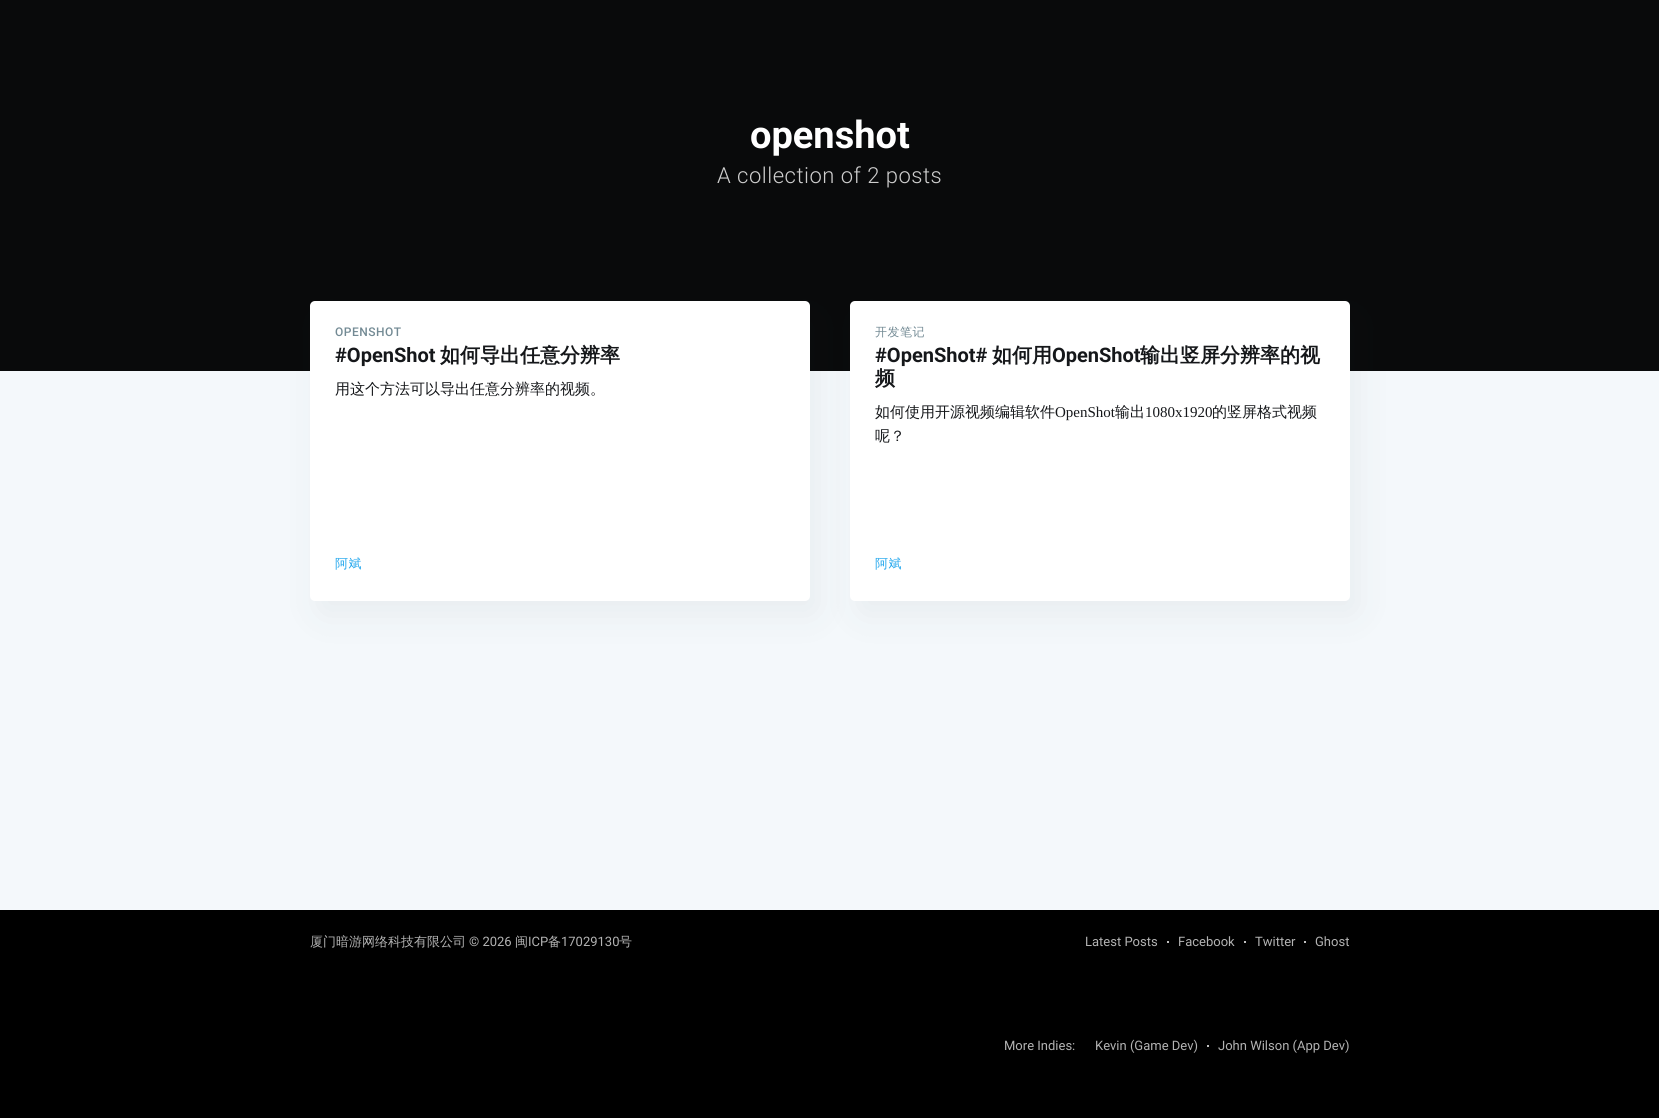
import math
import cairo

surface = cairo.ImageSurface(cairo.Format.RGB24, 1659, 1118)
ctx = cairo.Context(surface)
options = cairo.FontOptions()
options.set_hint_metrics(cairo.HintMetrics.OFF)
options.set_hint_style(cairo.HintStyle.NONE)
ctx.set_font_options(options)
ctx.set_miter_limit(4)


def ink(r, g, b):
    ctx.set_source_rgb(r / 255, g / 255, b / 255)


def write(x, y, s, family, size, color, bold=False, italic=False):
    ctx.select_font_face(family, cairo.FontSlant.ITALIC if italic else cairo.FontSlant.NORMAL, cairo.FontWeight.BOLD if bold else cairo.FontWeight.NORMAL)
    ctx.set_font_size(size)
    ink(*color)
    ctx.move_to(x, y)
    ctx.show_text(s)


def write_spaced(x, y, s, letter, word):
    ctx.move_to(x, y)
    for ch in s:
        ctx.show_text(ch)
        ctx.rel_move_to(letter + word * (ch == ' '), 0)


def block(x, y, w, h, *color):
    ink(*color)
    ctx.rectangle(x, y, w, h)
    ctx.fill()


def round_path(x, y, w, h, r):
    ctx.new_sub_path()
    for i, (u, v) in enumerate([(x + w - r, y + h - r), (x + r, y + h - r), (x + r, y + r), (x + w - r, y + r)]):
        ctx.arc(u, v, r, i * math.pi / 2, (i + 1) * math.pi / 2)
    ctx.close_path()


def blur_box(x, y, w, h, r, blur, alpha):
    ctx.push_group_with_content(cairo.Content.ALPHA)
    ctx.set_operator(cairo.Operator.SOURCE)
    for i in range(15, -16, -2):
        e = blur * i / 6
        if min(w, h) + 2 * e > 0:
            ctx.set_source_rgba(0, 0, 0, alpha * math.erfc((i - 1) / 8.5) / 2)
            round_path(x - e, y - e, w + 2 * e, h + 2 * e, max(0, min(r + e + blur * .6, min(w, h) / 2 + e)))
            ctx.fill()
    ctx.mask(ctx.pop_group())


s1 = dict(family="Roboto", size=38, color=(255, 255, 255), bold=True)
s2 = dict(family="Roboto", size=20, color=(21, 23, 26), bold=True)
s3 = dict(family="WenQuanYi Zen Hei", size=20, color=(21, 23, 26), bold=True)
s4 = dict(family="WenQuanYi Zen Hei Medium", size=15, color=(21, 23, 26))
s5 = dict(family="Liberation Serif", size=15, color=(21, 23, 26))
s6 = dict(family="WenQuanYi Zen Hei Medium", size=13, color=(179, 179, 179))
s7 = dict(family="Roboto", size=13, color=(179, 179, 179))

ink(244, 248, 251)
ctx.paint()
block(0, 0, 1659, 371, 9, 10, 11)
write(750, 148, "openshot", **s1)
ctx.select_font_face("Roboto Light")
ctx.set_font_size(22)
ink(206, 206, 206)
write_spaced(717, 183, "A collection of 2 posts", 0.5, 0)
ink(39, 44, 49)
blur_box(318, 315, 500, 300, 5, 19, 0.06)
ink(255, 255, 255)
round_path(310, 301, 500, 300, 5)
ctx.fill()
ctx.select_font_face("Roboto Medium")
ctx.set_font_size(12)
ink(115, 138, 148)
write_spaced(335, 336, "OPENSHOT", 0.5, 0)
write(335, 362, "#OpenShot", **s2)
write(440, 362, "如何导出任意分辨率", **s3)
write(335, 394, "用这个方法可以导出任意分辨率的视频。", **s4)
ctx.set_font_size(13)
ink(38, 168, 237)
write_spaced(335, 568, "阿斌", 0.5, 0)
ink(39, 44, 49)
blur_box(858, 315, 500, 300, 5, 19, 0.06)
ink(255, 255, 255)
round_path(850, 301, 500, 300, 5)
ctx.fill()
ctx.set_font_size(12)
ink(115, 138, 148)
write_spaced(875, 336, "开发笔记", 0.5, 0)
write(875, 362, "#OpenShot#", **s2)
write(992, 362, "如何用", **s3)
write(1052, 362, "OpenShot", **s2)
write(1140, 362, "输出竖屏分辨率的视", **s3)
write(875, 385, "频", **s3)
write(875, 417, "如何使用开源视频编辑软件", **s4)
write(1055, 417, "OpenShot", **s5)
write(1115, 417, "输出", **s4)
write(1145, 417, "1080x1920", **s5)
write(1212, 417, "的竖屏格式视频", **s4)
write(875, 441, "呢？", **s4)
ctx.set_font_size(13)
ink(38, 168, 237)
write_spaced(875, 568, "阿斌", 0.5, 0)
block(0, 910, 1659, 208, 0, 0, 0)
write(310, 946, "厦门暗游网络科技有限公司", **s6)
write(469, 946, "© 2026", **s7)
write(515, 946, "闽", **s6)
write(528, 946, "ICP", **s7)
write(548, 946, "备", **s6)
write(561, 946, "17029130", **s7)
write(619, 946, "号", **s6)
write(1085, 946, "Latest Posts", **s7)
ink(255, 255, 255)
ctx.new_path()
ctx.arc(1168, 942, 1, 0, 2 * math.pi)
ctx.fill()
write(1178, 946, "Facebook", **s7)
ink(255, 255, 255)
ctx.new_path()
ctx.arc(1245, 942, 1, 0, 2 * math.pi)
ctx.fill()
write(1255, 946, "Twitter", **s7)
ink(255, 255, 255)
ctx.new_path()
ctx.arc(1305, 942, 1, 0, 2 * math.pi)
ctx.fill()
write(1315, 946, "Ghost", **s7)
write(1004, 1050, "More Indies:", **s7)
write(1095, 1050, "Kevin (Game Dev)", **s7)
ink(255, 255, 255)
ctx.new_path()
ctx.arc(1208, 1046, 1, 0, 2 * math.pi)
ctx.fill()
write(1218, 1050, "John Wilson (App Dev)", **s7)
surface.write_to_png("screenshot.png")
